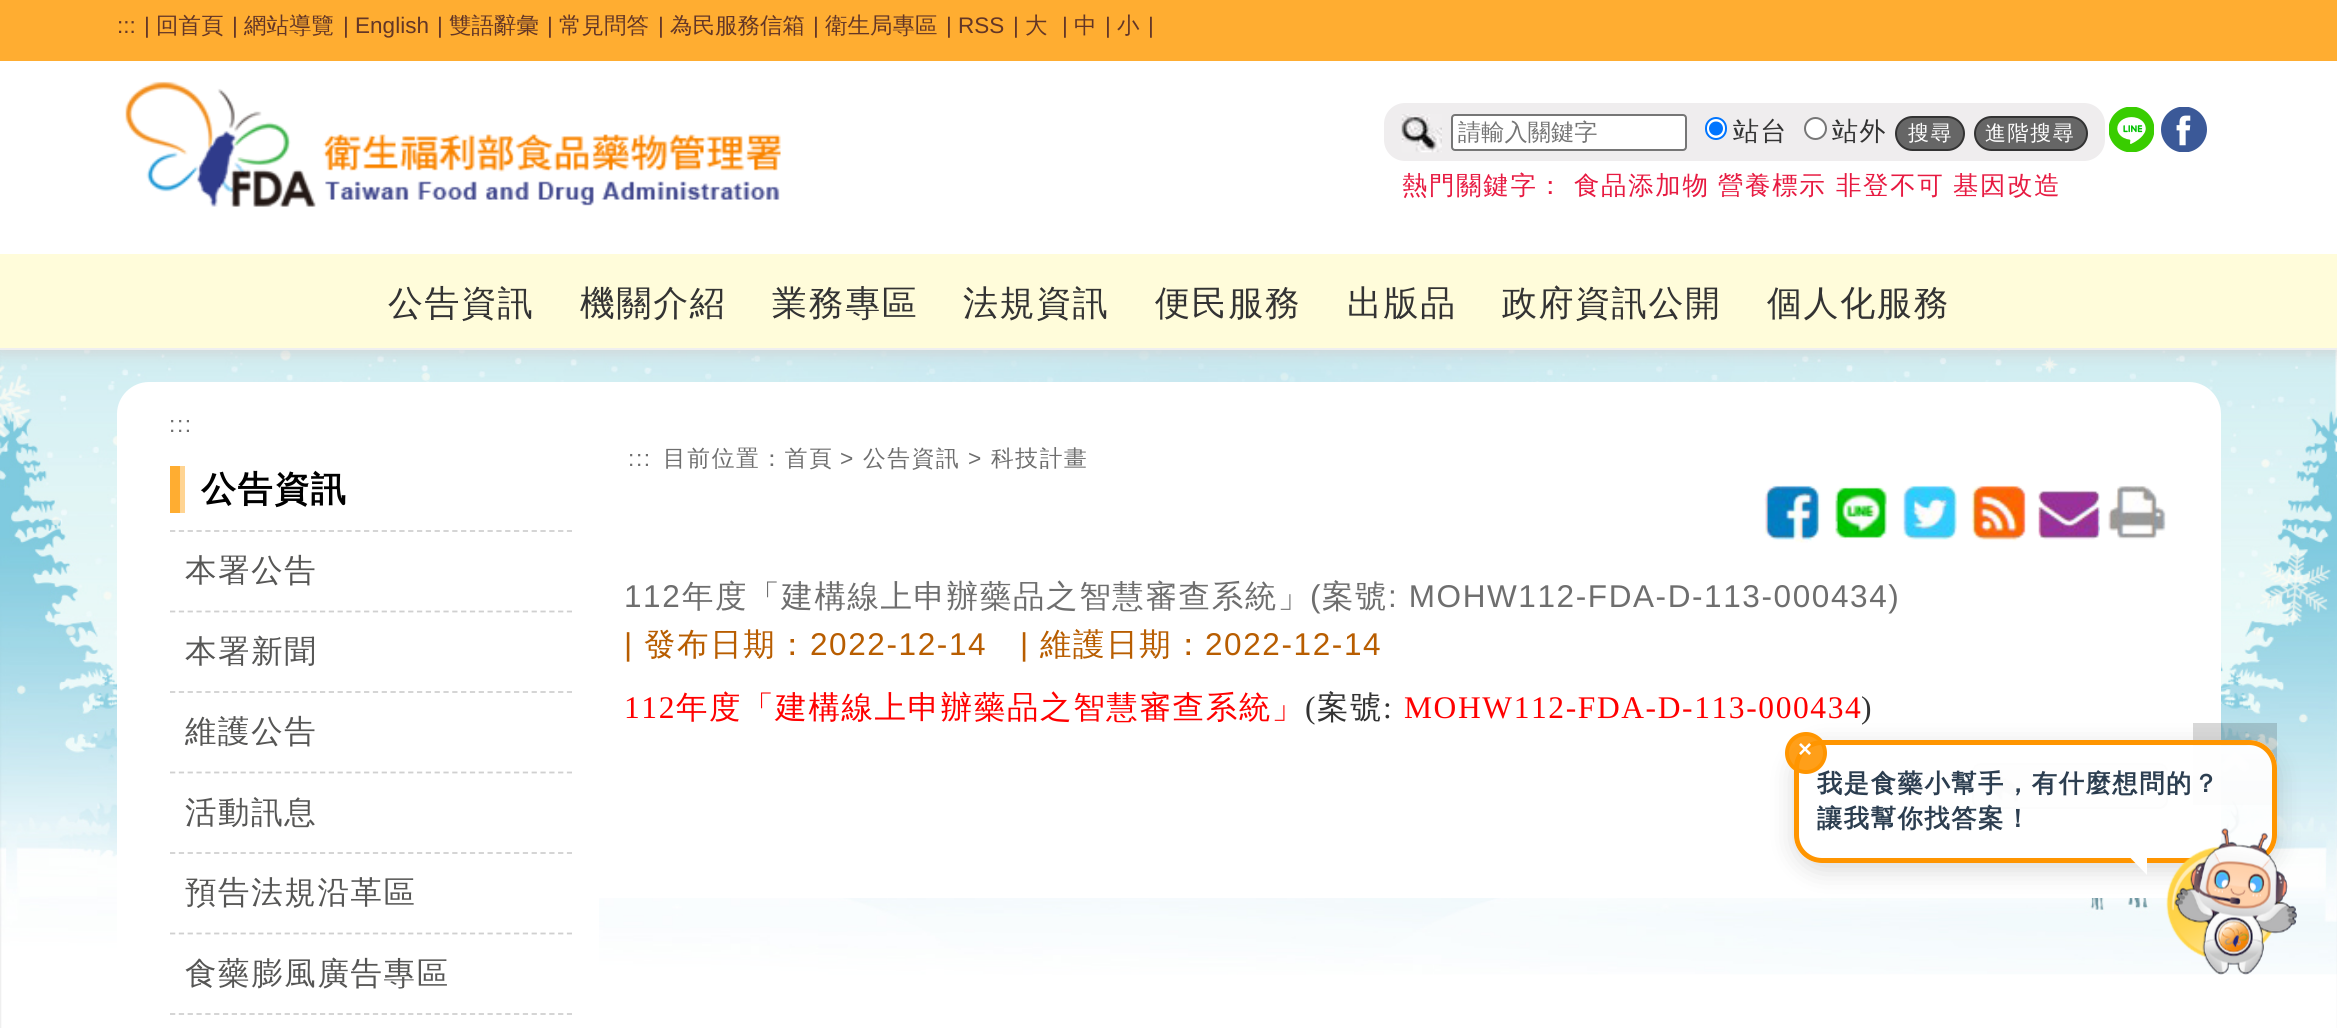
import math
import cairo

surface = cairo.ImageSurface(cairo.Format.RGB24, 2337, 1028)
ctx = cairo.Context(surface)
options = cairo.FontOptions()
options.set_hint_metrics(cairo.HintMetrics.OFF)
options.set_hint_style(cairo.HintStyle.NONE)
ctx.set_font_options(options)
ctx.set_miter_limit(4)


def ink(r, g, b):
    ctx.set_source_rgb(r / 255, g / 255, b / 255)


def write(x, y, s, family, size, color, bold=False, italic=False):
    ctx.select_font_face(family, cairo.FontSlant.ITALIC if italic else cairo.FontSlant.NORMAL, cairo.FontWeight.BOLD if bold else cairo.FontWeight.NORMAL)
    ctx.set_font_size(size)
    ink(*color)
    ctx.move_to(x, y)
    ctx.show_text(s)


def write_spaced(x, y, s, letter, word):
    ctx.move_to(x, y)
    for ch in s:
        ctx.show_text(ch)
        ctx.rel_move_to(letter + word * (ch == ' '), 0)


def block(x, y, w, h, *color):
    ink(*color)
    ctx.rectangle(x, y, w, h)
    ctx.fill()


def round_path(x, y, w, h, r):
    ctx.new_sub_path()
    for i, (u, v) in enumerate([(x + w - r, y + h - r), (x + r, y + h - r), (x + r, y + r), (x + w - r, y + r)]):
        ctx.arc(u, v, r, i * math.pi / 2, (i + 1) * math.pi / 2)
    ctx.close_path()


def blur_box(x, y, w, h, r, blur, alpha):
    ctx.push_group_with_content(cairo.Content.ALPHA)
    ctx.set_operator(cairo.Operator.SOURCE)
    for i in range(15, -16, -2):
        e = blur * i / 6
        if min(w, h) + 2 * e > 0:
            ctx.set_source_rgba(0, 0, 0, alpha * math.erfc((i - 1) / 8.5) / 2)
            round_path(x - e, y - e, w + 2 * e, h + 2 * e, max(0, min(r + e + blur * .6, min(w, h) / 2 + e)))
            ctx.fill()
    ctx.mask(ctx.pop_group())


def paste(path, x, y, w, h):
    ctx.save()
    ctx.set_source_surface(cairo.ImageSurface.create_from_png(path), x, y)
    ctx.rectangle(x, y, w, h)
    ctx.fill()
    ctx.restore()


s1 = dict(family="Liberation Sans", size=22.5, color=(99, 54, 38))
s2 = dict(family="WenQuanYi Zen Hei Medium", size=22.5, color=(99, 54, 38))
s3 = dict(family="WenQuanYi Zen Hei Medium", size=23.25, color=(117, 117, 117))

ink(255, 255, 255)
ctx.paint()
paste("pic1.png", 0, 350, 2337, 678)
ink(210, 210, 210)
blur_box(0, 2, 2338, 350, 0, 9, 1)
block(0, 61, 2337, 193, 255, 255, 255)
block(0, 0, 2337, 61, 255, 173, 49)
write(117, 33, ":::", **s1)
write(144, 33, "|", **s1)
write(156, 33, "回首頁", **s2)
write(232, 33, "|", **s1)
write(244, 33, "網站導覽", **s2)
write(343, 33, "| English", **s1)
write(437, 33, "|", **s1)
write(449, 33, "雙語辭彙", **s2)
write(547, 33, "|", **s1)
write(559, 33, "常見問答", **s2)
write(658, 33, "|", **s1)
write(670, 33, "為民服務信箱", **s2)
write(813, 33, "|", **s1)
write(825, 33, "衛生局專區", **s2)
write(946, 33, "| RSS", **s1)
write(1013, 33, "|", **s1)
write(1025, 33, "大", **s2)
write(1062, 33, "|", **s1)
write(1074, 33, "中", **s2)
write(1105, 33, "|", **s1)
write(1117, 33, "小", **s2)
write(1148, 33, "|", **s1)
paste("pic2.png", 125, 81, 191, 126)
paste("pic3.png", 323, 133, 458, 73)
ink(239, 237, 238)
round_path(1384, 103, 721, 58, 21)
ctx.fill()
paste("pic4.png", 1401, 114, 41, 39)
ink(255, 255, 255)
round_path(1452, 115, 234, 35, 3)
ctx.fill_preserve()
ink(118, 118, 118)
ctx.stroke()
write(1458, 140, "請輸入關鍵字", **s3)
ink(255, 255, 255)
round_path(1706, 118, 20, 21, 10)
ctx.fill_preserve()
ink(0, 117, 255)
ctx.stroke()
ctx.arc(1716, 128.5, 7, 0, 2 * math.pi)
ctx.fill()
ctx.set_font_size(26)
ink(51, 51, 51)
write_spaced(1733, 140, "站台", 1.6, 0)
ink(255, 255, 255)
ctx.new_path()
ctx.arc(1815.5, 128.5, 10.5, 0, 2 * math.pi)
ctx.fill_preserve()
ink(118, 118, 118)
ctx.stroke()
ink(51, 51, 51)
write_spaced(1832, 140, "站外", 1.6, 0)
ink(102, 102, 102)
round_path(1896, 117, 68, 33, 16.5)
ctx.fill_preserve()
ink(51, 51, 51)
ctx.stroke()
ctx.set_font_size(21)
ink(255, 255, 255)
write_spaced(1908, 140, "搜尋", 1.6, 0)
ink(102, 102, 102)
round_path(1975, 117, 112, 33, 16.5)
ctx.fill_preserve()
ink(51, 51, 51)
ctx.stroke()
ink(255, 255, 255)
write_spaced(1985, 140, "進階搜尋", 1.6, 0)
paste("pic5.png", 2109, 107, 45, 45)
paste("pic6.png", 2161, 107, 46, 45)
ctx.set_font_size(25.5)
ink(231, 26, 65)
write_spaced(1402, 194, "熱門關鍵字：", 1.6, 0)
write_spaced(1574, 194, "食品添加物", 1.6, 0)
write_spaced(1718, 194, "營養標示", 1.6, 0)
write_spaced(1836, 194, "非登不可", 1.6, 0)
write_spaced(1953, 194, "基因改造", 1.6, 0)
block(0, 254, 2337, 94, 255, 252, 218)
block(0, 348, 2337, 2, 239, 239, 239)
ctx.set_font_size(35)
ink(51, 51, 51)
write_spaced(388, 315, "公告資訊", 1.6, 0)
write_spaced(580, 315, "機關介紹", 1.6, 0)
write_spaced(772, 315, "業務專區", 1.6, 0)
write_spaced(963, 315, "法規資訊", 1.6, 0)
write_spaced(1155, 315, "便民服務", 1.6, 0)
write_spaced(1347, 315, "出版品", 1.6, 0)
write_spaced(1502, 315, "政府資訊公開", 1.6, 0)
write_spaced(1767, 315, "個人化服務", 1.6, 0)
ink(255, 255, 255)
ctx.new_path()
ctx.move_to(149, 382)
ctx.line_to(599, 382)
ctx.line_to(599, 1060)
ctx.line_to(149, 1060)
ctx.curve_to(131.5, 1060, 117, 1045.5, 117, 1028)
ctx.line_to(117, 414)
ctx.curve_to(117, 396.5, 131.5, 382, 149, 382)
ctx.close_path()
ctx.fill()
ctx.select_font_face("Liberation Sans")
ctx.set_font_size(22.75)
ink(110, 110, 110)
write_spaced(169, 432, ":::", 1.6, 0)
block(180, 466, 5, 47, 255, 212, 146)
block(170, 466, 10, 47, 255, 173, 49)
ctx.select_font_face("WenQuanYi Zen Hei", cairo.FontSlant.NORMAL, cairo.FontWeight.BOLD)
ctx.set_font_size(35)
ink(0, 0, 0)
write_spaced(201, 501, "公告資訊", 1.6, 0)
ctx.new_path()
ctx.move_to(170, 531)
ctx.line_to(572, 531)
ink(208, 208, 208)
ctx.set_line_width(1.8)
ctx.set_dash([5.25, 3.57])
ctx.stroke()
ctx.new_path()
ctx.move_to(170, 611.5)
ctx.line_to(572, 611.5)
ctx.stroke()
ctx.select_font_face("WenQuanYi Zen Hei Medium")
ctx.set_font_size(31.5)
ink(86, 86, 85)
write_spaced(185, 581, "本署公告", 1.6, 0)
ctx.new_path()
ctx.move_to(170, 692)
ctx.line_to(572, 692)
ink(208, 208, 208)
ctx.stroke()
ink(86, 86, 85)
write_spaced(185, 662, "本署新聞", 1.6, 0)
ctx.new_path()
ctx.move_to(170, 772.5)
ctx.line_to(572, 772.5)
ink(208, 208, 208)
ctx.stroke()
ink(86, 86, 85)
write_spaced(185, 742, "維護公告", 1.6, 0)
ctx.new_path()
ctx.move_to(170, 853)
ctx.line_to(572, 853)
ink(208, 208, 208)
ctx.stroke()
ink(86, 86, 85)
write_spaced(185, 823, "活動訊息", 1.6, 0)
ctx.new_path()
ctx.move_to(170, 933.5)
ctx.line_to(572, 933.5)
ink(208, 208, 208)
ctx.stroke()
ink(86, 86, 85)
write_spaced(185, 903, "預告法規沿革區", 1.6, 0)
ctx.new_path()
ctx.move_to(170, 1014)
ctx.line_to(572, 1014)
ink(208, 208, 208)
ctx.stroke()
ink(86, 86, 85)
write_spaced(185, 984, "食藥膨風廣告專區", 1.6, 0)
ink(255, 255, 255)
ctx.new_path()
ctx.move_to(599, 382)
ctx.line_to(2189, 382)
ctx.curve_to(2206.5, 382, 2221, 396.5, 2221, 414)
ctx.line_to(2221, 898)
ctx.line_to(599, 898)
ctx.close_path()
ctx.fill()
ctx.select_font_face("Liberation Sans")
ctx.set_font_size(22.75)
ink(110, 110, 110)
write_spaced(628, 466, ":::", 1.6, 0)
ctx.select_font_face("WenQuanYi Zen Hei Medium")
write_spaced(663, 466, "目前位置：首頁", 1.6, 0)
ctx.select_font_face("Liberation Sans")
write_spaced(840, 466, ">", 1.6, 0)
ctx.select_font_face("WenQuanYi Zen Hei Medium")
write_spaced(863, 466, "公告資訊", 1.6, 0)
ctx.select_font_face("Liberation Sans")
write_spaced(968, 466, ">", 1.6, 0)
ctx.select_font_face("WenQuanYi Zen Hei Medium")
write_spaced(991, 466, "科技計畫", 1.6, 0)
paste("pic7.png", 1763, 485, 58, 58)
paste("pic8.png", 1835, 486, 52, 54)
paste("pic9.png", 1902, 485, 55, 55)
paste("pic10.png", 1971, 485, 55, 57)
paste("pic11.png", 2038, 490, 62, 50)
paste("pic12.png", 2108, 486, 58, 54)
ctx.select_font_face("Liberation Sans")
ctx.set_font_size(31.5)
write_spaced(624, 607, "112", 1.6, 0)
ctx.select_font_face("WenQuanYi Zen Hei Medium")
write_spaced(682, 607, "年度「建構線上申辦藥品之智慧審查系統」", 1.6, 0)
ctx.select_font_face("Liberation Sans")
write_spaced(1310, 607, "(", 1.6, 0)
ctx.select_font_face("WenQuanYi Zen Hei Medium")
write_spaced(1322, 607, "案號", 1.6, 0)
ctx.select_font_face("Liberation Sans")
write_spaced(1388, 607, ": MOHW112-FDA-D-113-000434)", 1.6, 0)
ink(184, 93, 0)
write_spaced(624, 655, "|", 1.6, 0)
ctx.select_font_face("WenQuanYi Zen Hei Medium")
write_spaced(644, 655, "發布日期：", 1.6, 0)
ctx.select_font_face("Liberation Sans")
write_spaced(810, 655, "2022-12-14", 1.6, 0)
write_spaced(1020, 655, "|", 1.6, 0)
ctx.select_font_face("WenQuanYi Zen Hei Medium")
write_spaced(1040, 655, "維護日期：", 1.6, 0)
ctx.select_font_face("Liberation Sans")
write_spaced(1205, 655, "2022-12-14", 1.6, 0)
ctx.select_font_face("Liberation Serif")
ink(255, 0, 0)
write_spaced(624, 718, "112", 1.6, 0)
ctx.select_font_face("WenQuanYi Zen Hei Medium")
write_spaced(676, 718, "年度「建構線上申辦藥品之智慧審查系統」", 1.6, 0)
ctx.select_font_face("Liberation Serif")
ink(51, 51, 51)
write_spaced(1305, 718, "(", 1.6, 0)
ctx.select_font_face("WenQuanYi Zen Hei Medium")
write_spaced(1317, 718, "案號", 1.6, 0)
ctx.select_font_face("Liberation Serif")
write_spaced(1383, 718, ":", 1.6, 0)
ink(255, 0, 0)
write_spaced(1404, 718, "MOHW112-FDA-D-113-000434", 1.6, 0)
ink(51, 51, 51)
write_spaced(1861, 718, ")", 1.6, 0)
ink(239, 239, 239)
round_path(1972, 763, 196, 46, 9)
ctx.fill()
paste("pic13.png", 1986, 770, 32, 32)
round_path(1973, 764, 194, 44, 8)
ink(204, 204, 204)
ctx.set_line_width(2)
ctx.set_dash([])
ctx.stroke()
ctx.set_source_rgba(0, 0, 0, 0.15)
ctx.rectangle(2193, 723, 84, 82)
ctx.fill()
paste("pic14.png", 2220, 750, 29, 22)
ctx.save()
ctx.set_fill_rule(cairo.FillRule.EVEN_ODD)
ctx.new_path()
ctx.move_to(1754, 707)
ctx.line_to(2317, 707)
ctx.line_to(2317, 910)
ctx.line_to(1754, 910)
ctx.close_path()
ctx.move_to(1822, 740)
ctx.line_to(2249, 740)
ctx.curve_to(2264.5, 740, 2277, 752.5, 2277, 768)
ctx.line_to(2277, 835)
ctx.curve_to(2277, 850.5, 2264.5, 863, 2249, 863)
ctx.line_to(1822, 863)
ctx.curve_to(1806.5, 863, 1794, 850.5, 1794, 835)
ctx.line_to(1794, 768)
ctx.curve_to(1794, 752.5, 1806.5, 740, 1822, 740)
ctx.close_path()
ctx.clip()
ink(0, 0, 0)
blur_box(1794, 747, 483, 123, 28, 13, 0.15)
ctx.restore()
ctx.save()
round_path(1794, 740, 483, 123, 28)
ctx.clip()
gradient = cairo.LinearGradient(2035, 634, 2035, 746)
gradient.add_color_stop_rgba(0, 1, 1, 1, 0.98)
gradient.add_color_stop_rgba(1, 1, 1, 1, 0.9)
ctx.set_source(gradient)
ctx.rectangle(1804, 740, 463, 6)
ctx.fill()
gradient = cairo.LinearGradient(2035, 746, 2035, 858)
gradient.add_color_stop_rgba(0, 1, 1, 1, 0.98)
gradient.add_color_stop_rgba(1, 1, 1, 1, 0.9)
ctx.set_source(gradient)
ctx.rectangle(1794, 746, 483, 112)
ctx.fill()
ctx.restore()
round_path(1796.5, 742.5, 478, 118, 25.5)
ink(255, 149, 0)
ctx.set_line_width(5)
ctx.stroke()
ctx.select_font_face("WenQuanYi Zen Hei", cairo.FontSlant.NORMAL, cairo.FontWeight.BOLD)
ctx.set_font_size(25.25)
ink(44, 62, 80)
write_spaced(1817, 792, "我是食藥小幫手，有什麼想問的？", 1.6, 0)
ctx.set_source_rgba(1, 0.584, 0, 0.9)
ctx.new_path()
ctx.arc(1806, 753, 19, 0, 2 * math.pi)
ctx.fill_preserve()
ink(255, 149, 0)
ctx.set_line_width(4)
ctx.stroke()
ctx.select_font_face("Liberation Sans", cairo.FontSlant.NORMAL, cairo.FontWeight.BOLD)
ctx.set_font_size(24)
ink(255, 255, 255)
write_spaced(1798, 757, "×", 1.6, 0)
ctx.select_font_face("WenQuanYi Zen Hei", cairo.FontSlant.NORMAL, cairo.FontWeight.BOLD)
ctx.set_font_size(25.25)
ink(44, 62, 80)
write_spaced(1817, 827, "讓我幫你找答案！", 1.6, 0)
ink(255, 255, 255)
ctx.new_path()
ctx.move_to(2130, 857.5)
ctx.line_to(2147, 857.5)
ctx.line_to(2147, 875)
ctx.close_path()
ctx.fill()
paste("pic15.png", 2166, 828, 131, 147)
surface.write_to_png("screenshot.png")
